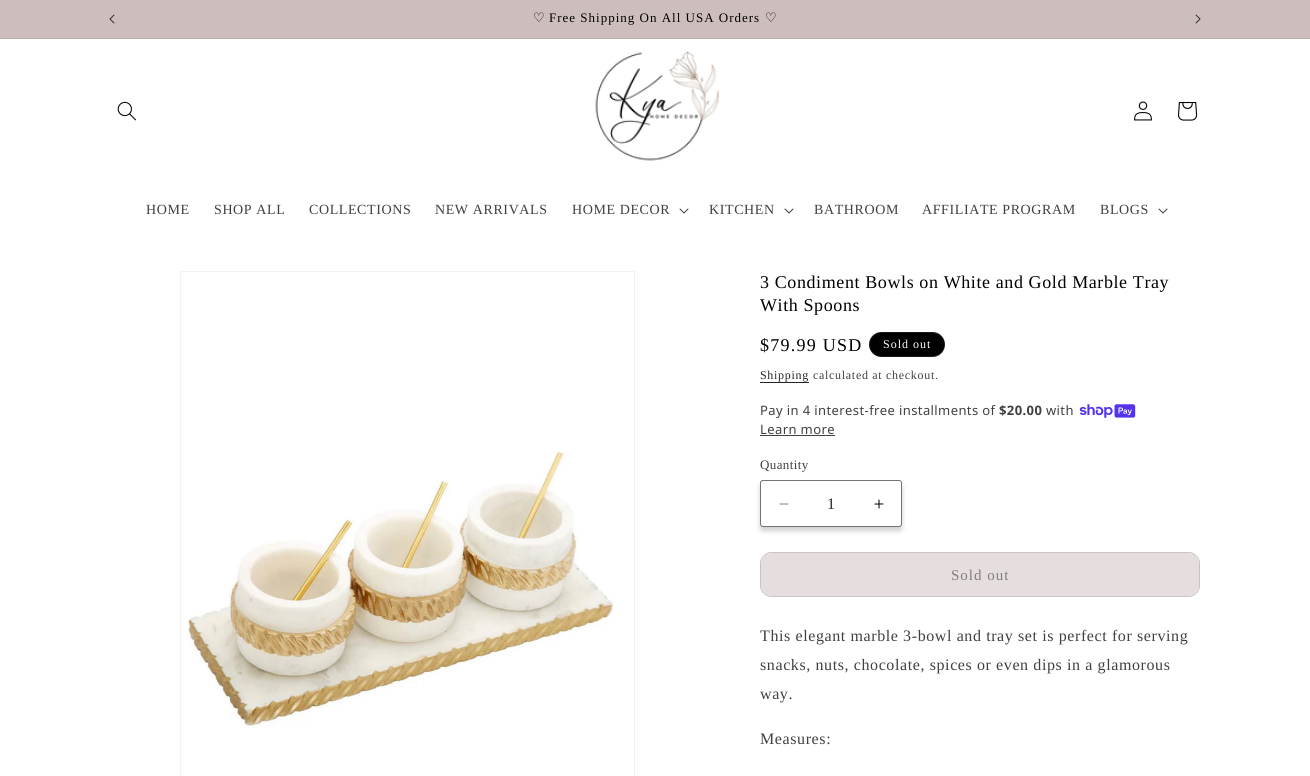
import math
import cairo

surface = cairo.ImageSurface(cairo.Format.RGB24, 1310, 776)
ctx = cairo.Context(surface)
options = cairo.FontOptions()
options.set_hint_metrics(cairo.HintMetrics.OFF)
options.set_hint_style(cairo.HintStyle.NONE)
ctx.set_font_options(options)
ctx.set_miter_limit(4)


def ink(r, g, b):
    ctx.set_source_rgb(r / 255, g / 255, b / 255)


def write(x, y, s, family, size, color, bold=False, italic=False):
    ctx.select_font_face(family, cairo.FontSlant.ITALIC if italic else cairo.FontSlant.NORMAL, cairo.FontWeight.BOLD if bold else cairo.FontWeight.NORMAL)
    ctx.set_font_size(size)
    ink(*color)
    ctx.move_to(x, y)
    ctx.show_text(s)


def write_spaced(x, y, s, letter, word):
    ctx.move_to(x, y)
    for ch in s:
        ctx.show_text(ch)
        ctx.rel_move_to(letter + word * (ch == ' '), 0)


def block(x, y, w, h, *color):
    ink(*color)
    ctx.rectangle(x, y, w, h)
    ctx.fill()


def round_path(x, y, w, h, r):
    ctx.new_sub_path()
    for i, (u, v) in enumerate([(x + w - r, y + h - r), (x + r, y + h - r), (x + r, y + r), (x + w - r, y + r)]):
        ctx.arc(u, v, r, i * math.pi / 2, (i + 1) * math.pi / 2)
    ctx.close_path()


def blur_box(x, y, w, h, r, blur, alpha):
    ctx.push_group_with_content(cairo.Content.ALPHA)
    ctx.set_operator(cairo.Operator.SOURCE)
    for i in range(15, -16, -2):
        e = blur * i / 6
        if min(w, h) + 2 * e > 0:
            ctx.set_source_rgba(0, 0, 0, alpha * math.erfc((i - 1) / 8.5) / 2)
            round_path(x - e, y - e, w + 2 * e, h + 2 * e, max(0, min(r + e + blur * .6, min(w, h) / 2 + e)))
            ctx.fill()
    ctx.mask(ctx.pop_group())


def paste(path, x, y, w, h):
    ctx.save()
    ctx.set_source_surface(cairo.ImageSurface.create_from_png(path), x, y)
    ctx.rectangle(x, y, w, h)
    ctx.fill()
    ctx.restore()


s1 = dict(family="Liberation Serif", size=16, color=(38, 38, 38))

ink(255, 255, 255)
ctx.paint()
block(0, 0, 1310, 38, 205, 189, 189)
block(0, 38, 1310, 1, 189, 174, 174)
paste("pic1.png", 109, 14, 6, 10)
ctx.select_font_face("DejaVu Sans")
ctx.set_font_size(13)
ink(0, 0, 0)
write_spaced(533, 22, "♡", 1, 0)
ctx.select_font_face("Liberation Serif")
write_spaced(549, 22, "Free Shipping On All USA Orders", 1, 0)
ctx.select_font_face("DejaVu Sans")
write_spaced(765, 22, "♡", 1, 0)
paste("pic2.png", 1195, 14, 6, 10)
paste("pic3.png", 117, 101, 19, 20)
paste("pic4.png", 595, 51, 125, 110)
paste("pic5.png", 1134, 101, 18, 20)
paste("pic6.png", 1178, 102, 20, 19)
ctx.select_font_face("Liberation Serif")
ctx.set_font_size(14)
ink(64, 64, 64)
write_spaced(146, 214, "HOME", 0.6, 0)
write_spaced(214, 214, "SHOP ALL", 0.6, 0)
write_spaced(309, 214, "COLLECTIONS", 0.6, 0)
write_spaced(435, 214, "NEW ARRIVALS", 0.6, 0)
write_spaced(572, 214, "HOME DECOR", 0.6, 0)
paste("pic7.png", 679, 208, 10, 6)
write_spaced(709, 214, "KITCHEN", 0.6, 0)
paste("pic7.png", 784, 208, 10, 6)
write_spaced(814, 214, "BATHROOM", 0.6, 0)
write_spaced(922, 214, "AFFILIATE PROGRAM", 0.6, 0)
write_spaced(1100, 214, "BLOGS", 0.6, 0)
paste("pic7.png", 1158, 208, 10, 6)
ctx.rectangle(180.5, 271.5, 454, 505)
ink(242, 242, 242)
ctx.set_line_width(1)
ctx.stroke()
paste("pic8.png", 187, 449, 427, 280)
ctx.set_font_size(18)
ink(0, 0, 0)
write_spaced(760, 288, "3 Condiment Bowls on White and Gold Marble Tray", 0.6, 0)
write_spaced(760, 311, "With Spoons", 0.6, 0)
write_spaced(760, 351, "$79.99 USD", 1.25, 0)
round_path(869, 332, 76, 25, 12.5)
ctx.fill()
round_path(869.5, 332.5, 75, 24, 12)
ctx.set_source_rgba(1, 0.984, 0.984, 0.1)
ctx.stroke()
ctx.set_font_size(12)
ink(255, 251, 251)
write_spaced(883, 348, "Sold out", 1, 0)
ink(38, 38, 38)
write_spaced(760, 379, "Shipping", 0.7, 0)
block(760, 382, 49, 1, 38, 38, 38)
ink(64, 64, 64)
write_spaced(813, 379, "calculated at checkout.", 0.7, 0)
ctx.select_font_face("Noto Sans")
ctx.set_font_size(13)
write_spaced(760, 415, "Pay in 4 interest-free installments of", 0.4, 0)
ctx.select_font_face("Noto Sans", cairo.FontSlant.NORMAL, cairo.FontWeight.BOLD)
write_spaced(999, 415, "$20.00", 0.4, 0)
ctx.select_font_face("Noto Sans")
write_spaced(1046, 415, "with", 0.4, 0)
paste("pic9.png", 1079, 404, 57, 14)
write_spaced(760, 434, "Learn more", 0.4, 0)
block(760, 435, 75, 1, 64, 64, 64)
ctx.select_font_face("Liberation Serif")
write_spaced(760, 469, "Quantity", 0.4, 0)
ink(18, 18, 18)
blur_box(760, 484, 142, 47, 3, 2.5, 0.2)
ink(255, 255, 255)
round_path(760, 480, 142, 47, 3)
ctx.fill()
paste("pic10.png", 779, 503, 10, 2)
paste("pic11.png", 874, 499, 10, 10)
round_path(760.5, 480.5, 141, 46, 2.5)
ctx.set_source_rgba(0, 0, 0, 0.55)
ctx.stroke()
write(827, 509, "1", **s1)
ink(230, 222, 222)
round_path(760, 552, 440, 45, 13)
ctx.fill()
round_path(760.15, 552.15, 439.7, 44.7, 11.85)
ink(128, 128, 128)
ctx.set_line_width(0.3)
ctx.stroke()
ctx.set_font_size(15)
write_spaced(951, 580, "Sold out", 1, 0)
ctx.set_font_size(16)
ink(64, 64, 64)
write_spaced(760, 641, "This elegant marble 3-bowl and tray set is perfect for serving", 0.6, 0)
write_spaced(760, 670, "snacks, nuts, chocolate, spices or even dips in a glamorous", 0.6, 0)
write_spaced(760, 699, "way.", 0.6, 0)
write_spaced(760, 744, "Measures:", 0.6, 0)
surface.write_to_png("screenshot.png")
